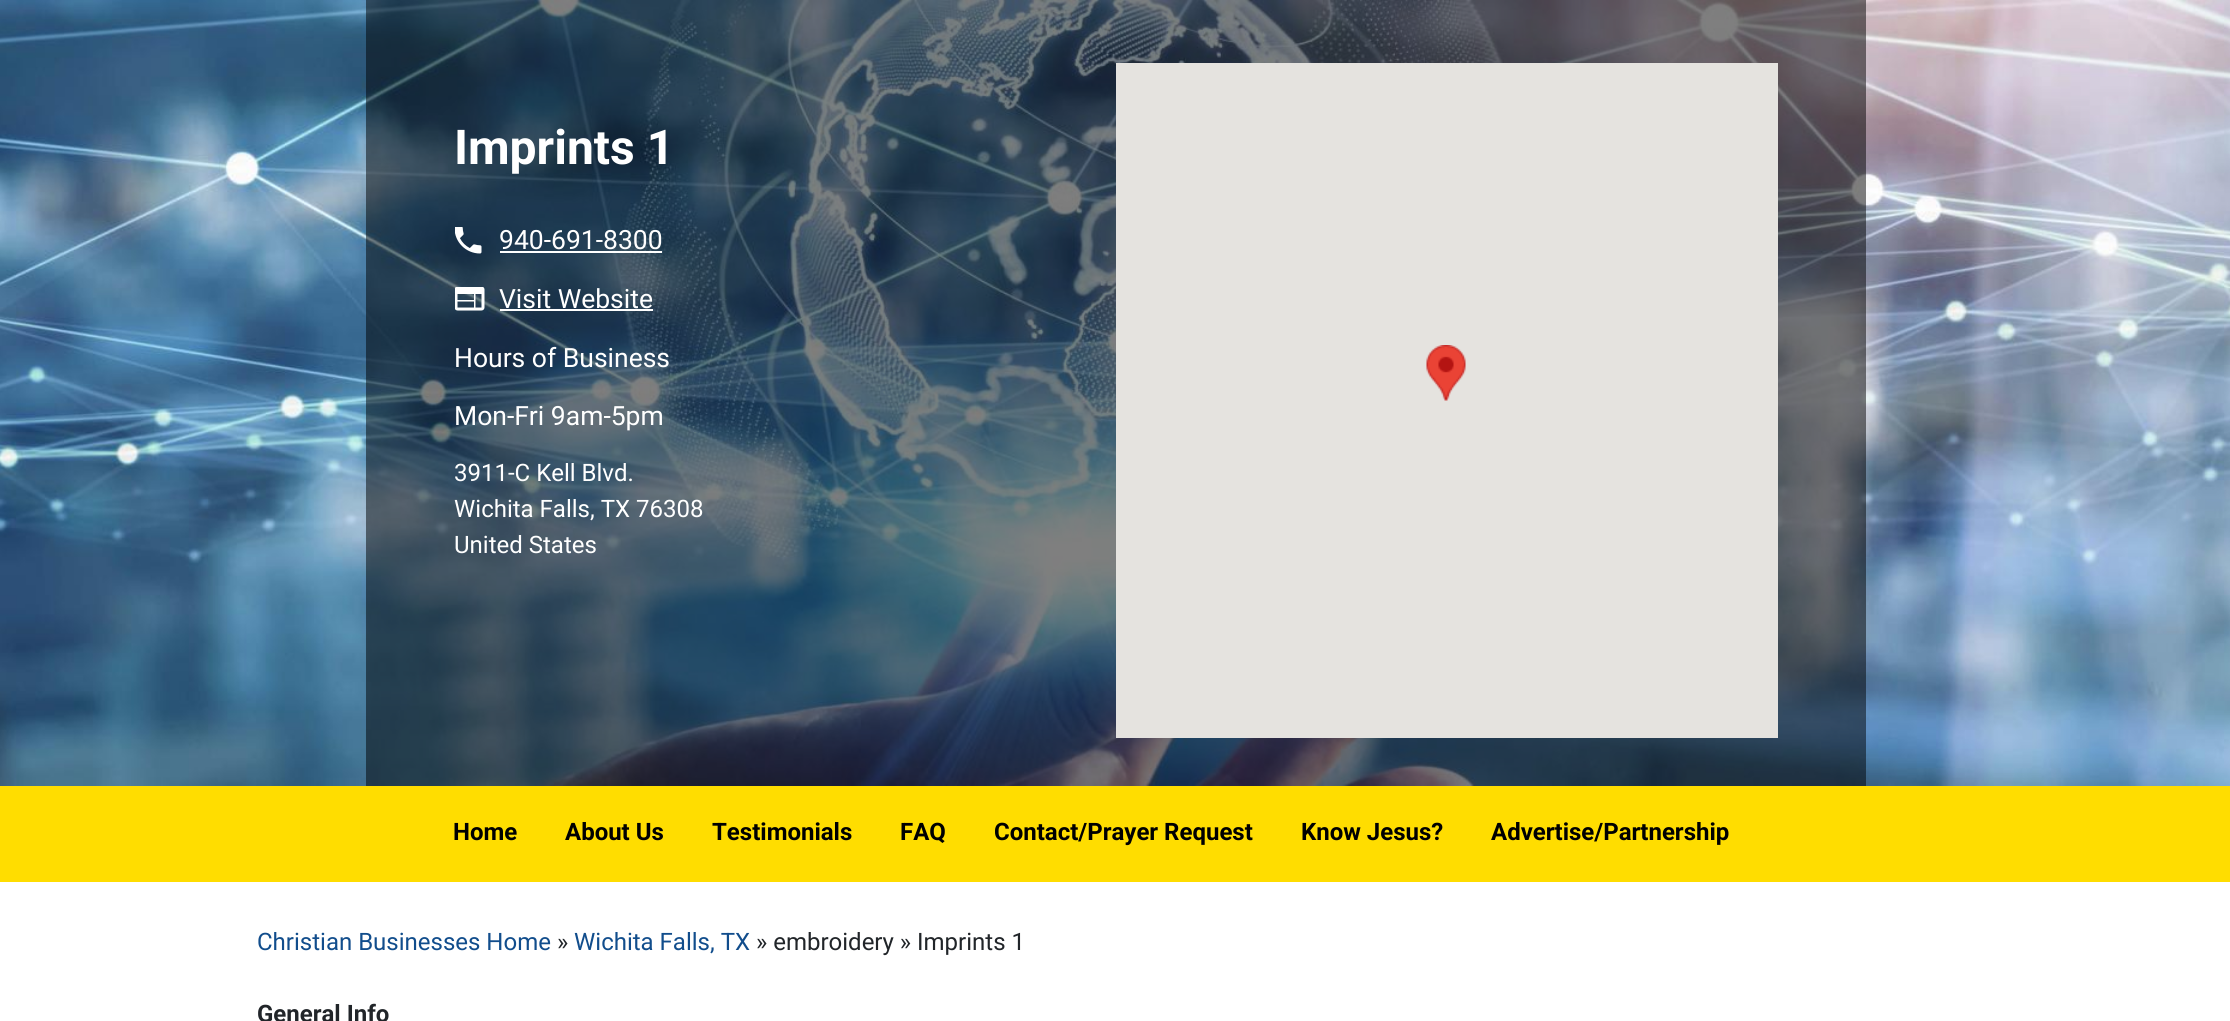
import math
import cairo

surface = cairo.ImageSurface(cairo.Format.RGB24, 2230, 1021)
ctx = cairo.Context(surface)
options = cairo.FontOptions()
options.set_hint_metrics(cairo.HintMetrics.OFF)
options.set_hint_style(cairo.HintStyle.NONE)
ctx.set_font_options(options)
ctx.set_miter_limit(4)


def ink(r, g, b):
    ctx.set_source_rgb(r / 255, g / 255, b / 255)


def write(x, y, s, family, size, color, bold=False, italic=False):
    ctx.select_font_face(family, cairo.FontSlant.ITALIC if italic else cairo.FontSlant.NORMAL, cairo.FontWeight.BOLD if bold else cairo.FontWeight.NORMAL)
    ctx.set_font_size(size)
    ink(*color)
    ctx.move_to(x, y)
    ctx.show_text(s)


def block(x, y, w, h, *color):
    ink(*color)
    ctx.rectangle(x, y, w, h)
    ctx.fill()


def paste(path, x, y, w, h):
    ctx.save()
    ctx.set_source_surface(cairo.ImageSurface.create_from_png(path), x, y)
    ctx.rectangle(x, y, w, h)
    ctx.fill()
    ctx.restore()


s1 = dict(family="Roboto", size=48, color=(255, 255, 255), bold=True)
s2 = dict(family="Roboto", size=26.5, color=(255, 255, 255))
s3 = dict(family="Roboto", size=24, color=(255, 255, 255))
s4 = dict(family="Roboto", size=24, color=(0, 0, 0), bold=True)
s5 = dict(family="Roboto", size=24, color=(17, 77, 140))
s6 = dict(family="Roboto", size=24, color=(33, 37, 41))
s7 = dict(family="Roboto", size=24, color=(33, 37, 41), bold=True)

ink(255, 255, 255)
ctx.paint()
paste("pic1.png", 0, 0, 2230, 786)
ctx.set_source_rgba(0, 0, 0, 0.5)
ctx.rectangle(366, 0, 1500, 786)
ctx.fill()
write(454, 164, "Imprints 1", **s1)
paste("pic2.png", 455, 227, 27, 27)
write(499, 249, "940-691-8300", **s2)
block(500, 251, 162, 2, 255, 255, 255)
paste("pic3.png", 455, 287, 30, 24)
write(499, 308, "Visit Website", **s2)
block(500, 309, 153, 2, 255, 255, 255)
write(454, 367, "Hours of Business", **s2)
write(454, 425, "Mon-Fri 9am-5pm", **s2)
write(454, 481, "3911-C Kell Blvd.", **s3)
write(454, 517, "Wichita Falls, TX 76308", **s3)
write(454, 553, "United States", **s3)
block(1116, 63, 662, 675, 229, 227, 223)
paste("pic4.png", 1426, 345, 40, 56)
block(0, 786, 2230, 96, 255, 221, 0)
write(453, 840, "Home", **s4)
write(565, 840, "About Us", **s4)
write(712, 840, "Testimonials", **s4)
write(900, 840, "FAQ", **s4)
write(994, 840, "Contact/Prayer Request", **s4)
write(1301, 840, "Know Jesus?", **s4)
write(1491, 840, "Advertise/Partnership", **s4)
write(257, 950, "Christian Businesses Home", **s5)
write(557, 950, "»", **s6)
write(574, 950, "Wichita Falls, TX", **s5)
write(756, 950, "» embroidery » Imprints 1", **s6)
write(257, 1022, "General Info", **s7)
surface.write_to_png("screenshot.png")
